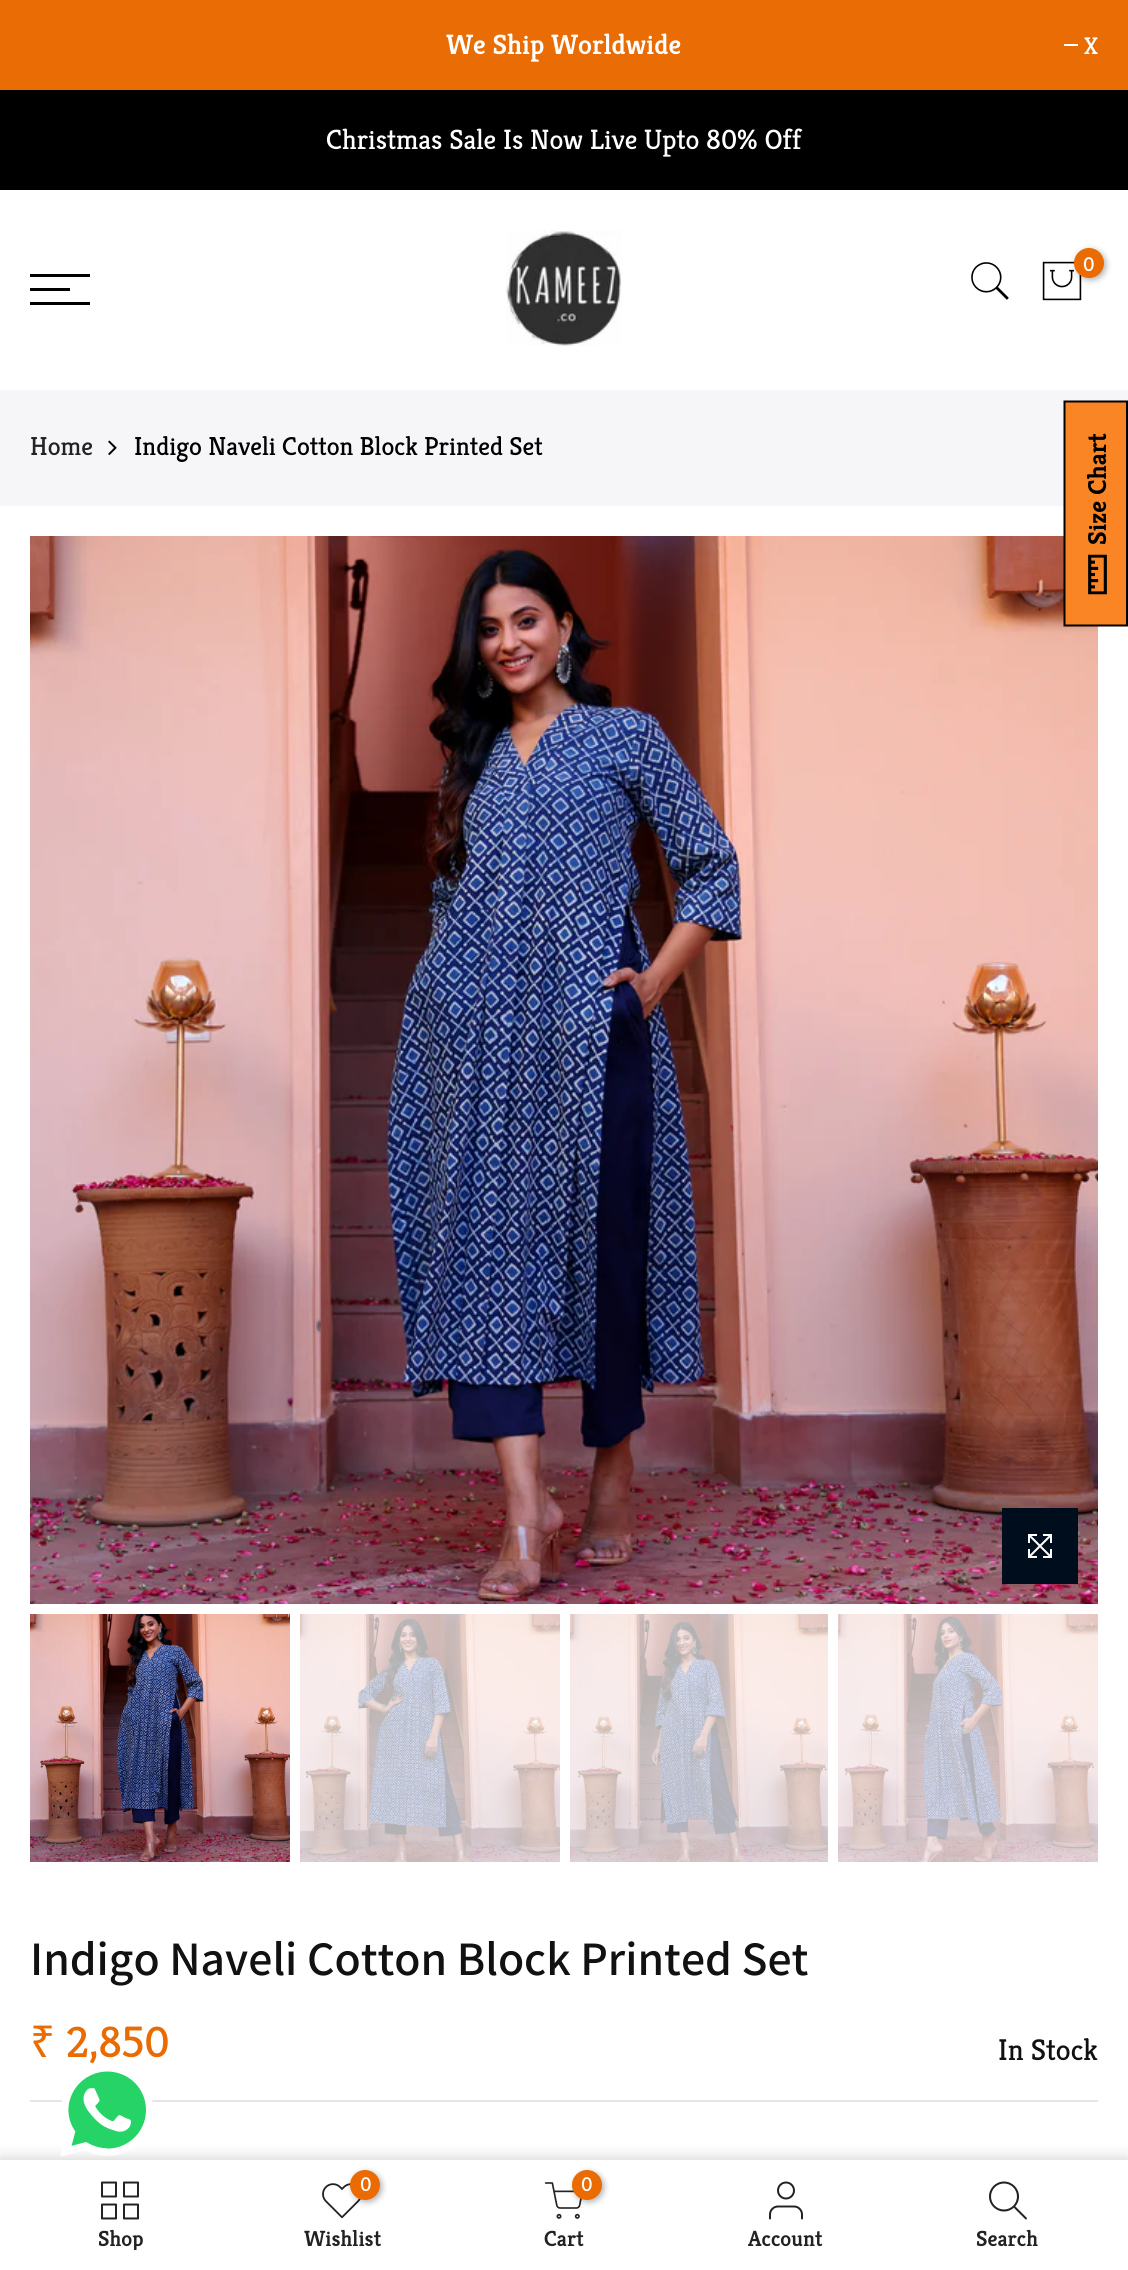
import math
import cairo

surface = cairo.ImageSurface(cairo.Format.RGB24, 1128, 2270)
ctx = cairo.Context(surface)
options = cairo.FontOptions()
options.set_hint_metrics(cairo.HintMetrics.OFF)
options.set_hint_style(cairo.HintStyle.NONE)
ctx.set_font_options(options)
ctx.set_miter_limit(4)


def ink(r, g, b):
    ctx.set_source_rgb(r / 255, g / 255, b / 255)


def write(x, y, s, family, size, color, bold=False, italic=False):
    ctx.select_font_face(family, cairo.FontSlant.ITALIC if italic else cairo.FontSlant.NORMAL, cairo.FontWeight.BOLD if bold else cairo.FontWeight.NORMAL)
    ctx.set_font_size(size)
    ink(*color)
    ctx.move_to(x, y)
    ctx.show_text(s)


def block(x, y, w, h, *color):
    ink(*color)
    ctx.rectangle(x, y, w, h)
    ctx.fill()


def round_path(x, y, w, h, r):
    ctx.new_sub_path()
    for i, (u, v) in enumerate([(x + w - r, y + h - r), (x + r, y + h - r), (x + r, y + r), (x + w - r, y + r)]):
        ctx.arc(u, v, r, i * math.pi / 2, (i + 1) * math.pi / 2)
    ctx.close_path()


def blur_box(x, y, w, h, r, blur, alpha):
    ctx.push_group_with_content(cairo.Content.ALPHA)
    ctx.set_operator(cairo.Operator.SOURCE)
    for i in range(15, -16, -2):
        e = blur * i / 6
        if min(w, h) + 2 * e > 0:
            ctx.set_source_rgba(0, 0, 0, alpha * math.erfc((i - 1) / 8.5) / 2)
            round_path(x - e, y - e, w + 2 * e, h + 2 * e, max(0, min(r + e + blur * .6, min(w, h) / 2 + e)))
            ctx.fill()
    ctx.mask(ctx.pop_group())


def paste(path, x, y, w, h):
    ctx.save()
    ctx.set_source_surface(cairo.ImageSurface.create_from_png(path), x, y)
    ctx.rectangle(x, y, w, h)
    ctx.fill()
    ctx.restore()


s1 = dict(family="Kreon SemiBold", size=28, color=(255, 255, 255))
s2 = dict(family="Kreon", size=24, color=(255, 255, 255))
s3 = dict(family="Kreon", size=28, color=(255, 255, 255))
s4 = dict(family="Kreon", size=20, color=(255, 255, 255))
s5 = dict(family="Kreon", size=26, color=(34, 34, 34))
s6 = dict(family="Kreon", size=26, color=(0, 0, 0))
s7 = dict(family="Assistant SemiBold", size=48, color=(17, 17, 17))
s8 = dict(family="Noto Sans", size=44, color=(233, 107, 1))
s9 = dict(family="Kreon", size=44, color=(233, 107, 1))
s10 = dict(family="Kreon", size=30, color=(17, 17, 17))
s11 = dict(family="Kreon", size=26, color=(0, 0, 0), bold=True)
s12 = dict(family="Kreon SemiBold", size=22, color=(34, 34, 34))

ink(255, 255, 255)
ctx.paint()
block(0, 0, 1128, 90, 233, 108, 4)
write(446, 54, "We Ship Worldwide", **s1)
block(1064, 44, 14, 2, 255, 255, 255)
write(1084, 54, "X", **s2)
block(0, 90, 1128, 100, 0, 0, 0)
write(326, 149, "Christmas Sale Is Now Live Upto 80% Off", **s3)
paste("pic1.png", 506, 230, 116, 116)
paste("pic2.png", 971, 262, 38, 38)
paste("pic3.png", 1042, 261, 40, 40)
ink(0, 0, 0)
blur_box(1076, 250, 30, 30, 15, 3, 0.3)
ink(233, 107, 1)
ctx.arc(1089, 263, 15, 0, 2 * math.pi)
ctx.fill()
write(1083, 271, "0", **s4)
block(30, 274, 60, 3, 0, 0, 0)
block(30, 288, 40, 3, 0, 0, 0)
block(30, 302, 60, 3, 0, 0, 0)
block(0, 390, 1128, 116, 246, 246, 248)
write(30, 455, "Home", **s5)
paste("pic4.png", 108, 440, 9, 15)
write(134, 455, "Indigo Naveli Cotton Block Printed Set", **s6)
paste("pic5.png", 30, 536, 1068, 1068)
block(1002, 1508, 76, 76, 0, 13, 29)
paste("pic6.png", 1028, 1534, 24, 24)
paste("pic7.png", 30, 1614, 260, 248)
paste("pic8.png", 300, 1614, 260, 248)
paste("pic9.png", 570, 1614, 258, 248)
paste("pic10.png", 838, 1614, 260, 248)
write(30, 1975, "Indigo Naveli Cotton Block Printed Set", **s7)
block(30, 2100, 1068, 2, 229, 229, 229)
write(30, 2057, "₹", **s8)
write(66, 2057, "2,850", **s9)
write(998, 2060, "In Stock", **s10)
block(1065, 402, 61, 223, 249, 133, 36)
ctx.new_path()
ctx.move_to(1064.5, 625.5)
ctx.line_to(1064.5, 401.5)
ctx.line_to(1127, 401.5)
ctx.line_to(1127, 625.5)
ctx.close_path()
ink(0, 0, 0)
ctx.stroke()
ctx.save()
ctx.translate(1106, 545)
ctx.rotate(-90 * math.pi / 180)
write(0, 0, "Size Chart", **s11)
ctx.restore()
paste("pic11.png", 1088, 554, 19, 41)
ink(0, 0, 0)
blur_box(0, 2162, 1128, 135, 0, 9, 0.12)
blur_box(0, 2160, 1128, 110, 0, 9, 0.12)
paste("pic12.png", 60, 2071, 93, 86)
block(0, 2160, 1128, 110, 255, 255, 255)
paste("pic13.png", 101, 2181, 38, 39)
ctx.save()
ctx.rectangle(30, 2228, 182, 22)
ctx.clip()
write(98, 2246, "Shop", **s12)
ctx.restore()
paste("pic14.png", 322, 2183, 39, 36)
ink(0, 0, 0)
blur_box(352, 2172, 30, 30, 15, 3, 0.3)
ink(233, 107, 1)
ctx.arc(365, 2185, 15, 0, 2 * math.pi)
ctx.fill()
write(360, 2191, "0", **s4)
write(304, 2246, "Wishlist", **s12)
paste("pic15.png", 544, 2182, 38, 37)
ink(0, 0, 0)
blur_box(574, 2172, 30, 30, 15, 3, 0.3)
ink(233, 107, 1)
ctx.arc(587, 2185, 15, 0, 2 * math.pi)
ctx.fill()
write(581, 2191, "0", **s4)
write(544, 2246, "Cart", **s12)
paste("pic16.png", 769, 2181, 34, 39)
write(748, 2246, "Account", **s12)
paste("pic17.png", 989, 2181, 38, 39)
write(976, 2246, "Search", **s12)
surface.write_to_png("screenshot.png")
